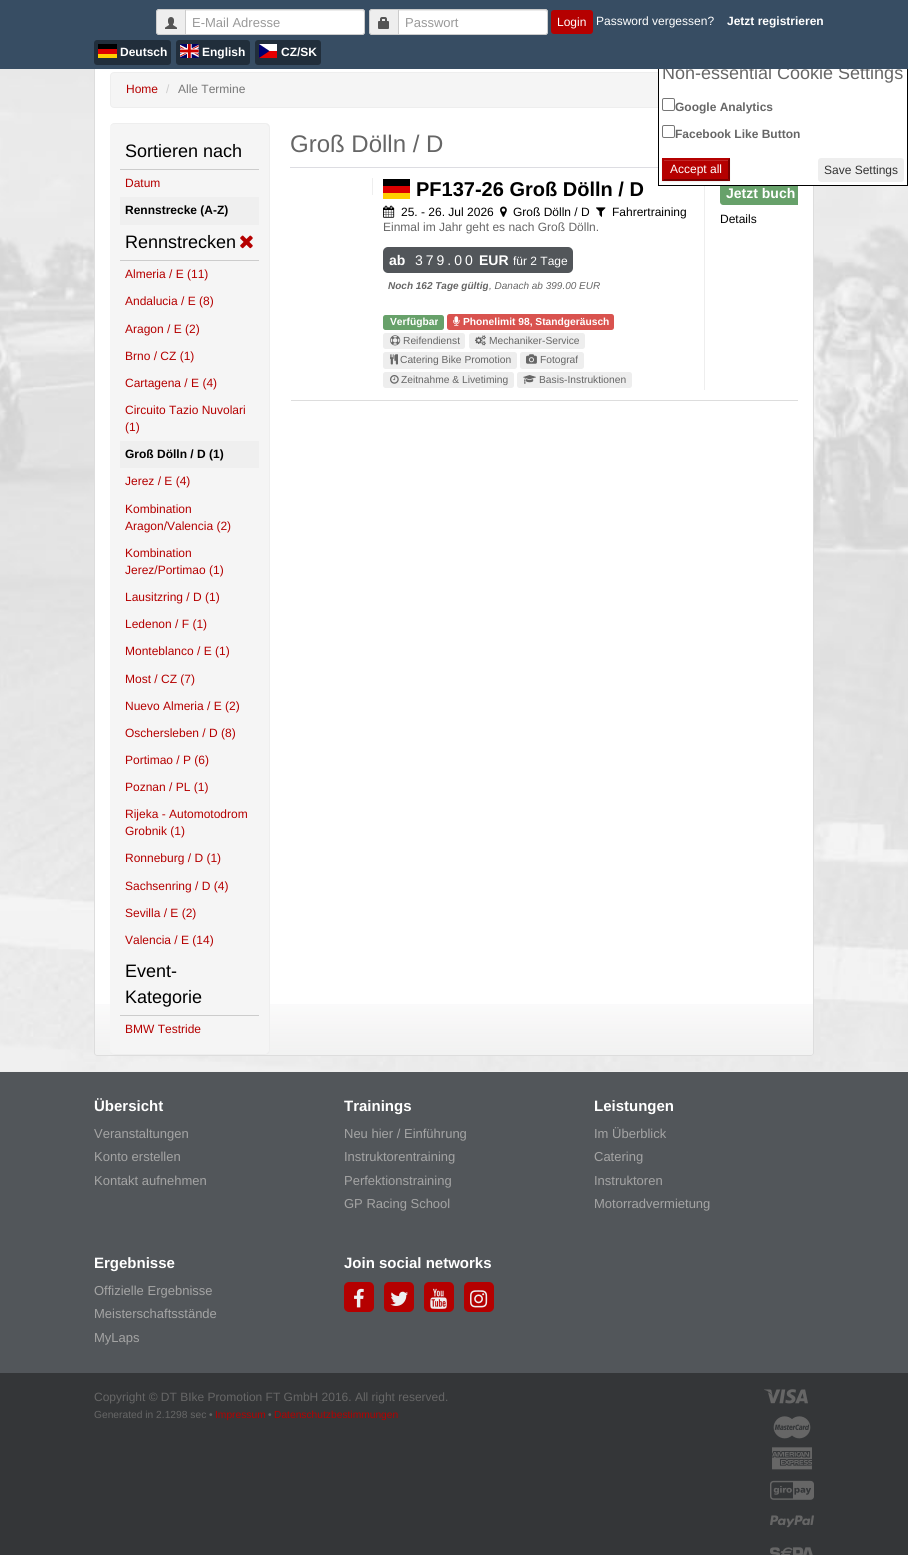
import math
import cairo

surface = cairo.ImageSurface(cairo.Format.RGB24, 908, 1555)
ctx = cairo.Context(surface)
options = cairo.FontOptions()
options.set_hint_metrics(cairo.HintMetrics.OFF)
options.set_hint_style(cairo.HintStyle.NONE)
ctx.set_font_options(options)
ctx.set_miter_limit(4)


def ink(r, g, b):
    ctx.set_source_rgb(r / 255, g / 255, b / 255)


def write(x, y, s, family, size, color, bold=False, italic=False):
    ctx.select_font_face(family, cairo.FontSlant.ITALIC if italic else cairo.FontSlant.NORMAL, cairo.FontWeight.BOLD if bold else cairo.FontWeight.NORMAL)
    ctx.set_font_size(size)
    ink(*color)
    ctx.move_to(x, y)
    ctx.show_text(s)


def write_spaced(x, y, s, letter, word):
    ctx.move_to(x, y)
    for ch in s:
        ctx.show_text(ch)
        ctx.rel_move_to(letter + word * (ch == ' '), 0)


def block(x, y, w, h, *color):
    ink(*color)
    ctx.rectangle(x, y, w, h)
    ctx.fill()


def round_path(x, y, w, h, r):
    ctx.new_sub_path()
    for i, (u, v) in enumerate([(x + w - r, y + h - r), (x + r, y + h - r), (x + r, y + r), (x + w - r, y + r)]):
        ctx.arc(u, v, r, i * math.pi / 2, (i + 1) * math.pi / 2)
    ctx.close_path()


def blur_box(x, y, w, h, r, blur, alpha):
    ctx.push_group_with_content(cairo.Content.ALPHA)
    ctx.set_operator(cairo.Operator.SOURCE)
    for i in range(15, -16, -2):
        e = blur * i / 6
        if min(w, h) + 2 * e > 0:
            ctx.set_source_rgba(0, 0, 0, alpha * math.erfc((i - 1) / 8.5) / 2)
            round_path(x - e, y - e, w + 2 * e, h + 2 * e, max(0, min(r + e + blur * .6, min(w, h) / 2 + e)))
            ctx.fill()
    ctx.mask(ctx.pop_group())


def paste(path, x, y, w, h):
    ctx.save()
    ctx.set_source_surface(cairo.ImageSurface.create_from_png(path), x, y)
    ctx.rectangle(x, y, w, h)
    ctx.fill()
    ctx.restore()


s1 = dict(family="Liberation Sans", size=18, color=(102, 102, 102))
s2 = dict(family="Liberation Sans", size=13, color=(153, 153, 153))
s3 = dict(family="Liberation Sans", size=12, color=(255, 255, 255))
s4 = dict(family="Liberation Sans", size=12, color=(255, 255, 255), bold=True)
s5 = dict(family="Liberation Sans", size=12, color=(102, 102, 102), bold=True)
s6 = dict(family="Liberation Sans", size=12, color=(51, 51, 51))
s7 = dict(family="Liberation Sans", size=12, color=(181, 0, 0))
s8 = dict(family="Liberation Sans", size=12, color=(204, 204, 204))
s9 = dict(family="Liberation Sans", size=12, color=(119, 119, 119))
s10 = dict(family="Liberation Sans", size=18, color=(0, 0, 0))
s11 = dict(family="Liberation Sans", size=12, color=(0, 0, 0), bold=True)
s12 = dict(family="Liberation Sans", size=24, color=(102, 102, 102))
s13 = dict(family="Liberation Sans", size=20, color=(0, 0, 0), bold=True)
s14 = dict(family="Liberation Sans", size=12, color=(0, 0, 0))
s15 = dict(family="Liberation Sans", size=12, color=(102, 102, 102))
s16 = dict(family="Liberation Sans", size=14, color=(255, 255, 255), bold=True)
s17 = dict(family="Liberation Sans", size=10, color=(102, 102, 102), bold=True, italic=True)
s18 = dict(family="Liberation Sans", size=10, color=(102, 102, 102), italic=True)
s19 = dict(family="Liberation Sans", size=10.25, color=(255, 255, 255), bold=True)
s20 = dict(family="Liberation Sans", size=10.25, color=(102, 102, 102))
s21 = dict(family="Liberation Sans", size=15, color=(255, 255, 255), bold=True)
s22 = dict(family="Liberation Sans", size=13, color=(164, 164, 164))
s23 = dict(family="Liberation Sans", size=10.25, color=(181, 0, 0))

ink(255, 255, 255)
ctx.paint()
paste("pic4.png", 0, 69, 908, 1002)
ink(255, 255, 255)
round_path(94, 37, 720, 1019, 3)
ctx.fill()
paste("pic5.png", 94, 1004, 720, 51)
round_path(94.5, 37.5, 719, 1018, 2.5)
ink(221, 221, 221)
ctx.set_line_width(1)
ctx.stroke()
ink(245, 245, 245)
round_path(110.5, 72.5, 687, 35, 3.5)
ctx.fill_preserve()
ink(238, 238, 238)
ctx.stroke()
block(704, 178, 1, 212, 238, 238, 238)
ink(103, 161, 106)
ctx.new_path()
ctx.move_to(723, 181)
ctx.line_to(798, 181)
ctx.line_to(798, 205)
ctx.line_to(723, 205)
ctx.curve_to(721.5, 205, 720, 203.5, 720, 202)
ctx.line_to(720, 184)
ctx.curve_to(720, 182.5, 721.5, 181, 723, 181)
ctx.close_path()
ctx.fill()
block(659, 69, 248, 116, 255, 255, 255)
ctx.rectangle(658.5, 50.5, 249, 135)
ink(0, 0, 0)
ctx.stroke()
write(662, 79, "Non-essential Cookie Settings", **s1)
block(0, 0, 908, 69, 55, 77, 99)
ink(238, 238, 238)
ctx.new_path()
ctx.move_to(159, 9)
ctx.line_to(185, 9)
ctx.line_to(185, 35)
ctx.line_to(159, 35)
ctx.curve_to(157.5, 35, 156, 33.5, 156, 32)
ctx.line_to(156, 12)
ctx.curve_to(156, 10.5, 157.5, 9, 159, 9)
ctx.close_path()
ctx.fill()
ink(204, 204, 204)
ctx.set_fill_rule(cairo.FillRule.EVEN_ODD)
ctx.new_path()
ctx.move_to(159, 9)
ctx.line_to(185, 9)
ctx.line_to(185, 35)
ctx.line_to(159, 35)
ctx.curve_to(157.5, 35, 156, 33.5, 156, 32)
ctx.line_to(156, 12)
ctx.curve_to(156, 10.5, 157.5, 9, 159, 9)
ctx.close_path()
ctx.move_to(159, 10)
ctx.line_to(185, 10)
ctx.line_to(185, 34)
ctx.line_to(159, 34)
ctx.curve_to(158, 34, 157, 33, 157, 32)
ctx.line_to(157, 12)
ctx.curve_to(157, 11, 158, 10, 159, 10)
ctx.close_path()
ctx.fill()
paste("pic1.png", 165, 17, 12, 12)
ink(255, 255, 255)
ctx.new_path()
ctx.move_to(185, 9)
ctx.line_to(362, 9)
ctx.curve_to(363.5, 9, 365, 10.5, 365, 12)
ctx.line_to(365, 32)
ctx.curve_to(365, 33.5, 363.5, 35, 362, 35)
ctx.line_to(185, 35)
ctx.close_path()
ctx.fill()
ink(236, 236, 236)
ctx.set_fill_rule(cairo.FillRule.WINDING)
ctx.new_path()
ctx.move_to(186, 11)
ctx.line_to(362, 11)
ctx.curve_to(363, 11, 364, 12, 364, 13)
ctx.curve_to(364, 12, 364, 11, 363, 10)
ctx.line_to(186, 10)
ctx.close_path()
ctx.fill()
ctx.new_path()
ctx.move_to(185.5, 9.5)
ctx.line_to(362, 9.5)
ctx.curve_to(363.5, 9.5, 364.5, 10.5, 364.5, 12)
ctx.line_to(364.5, 32)
ctx.curve_to(364.5, 33.5, 363.5, 34.5, 362, 34.5)
ctx.line_to(185.5, 34.5)
ctx.close_path()
ink(204, 204, 204)
ctx.stroke()
write(192, 27, "E-Mail Adresse", **s2)
ink(238, 238, 238)
ctx.new_path()
ctx.move_to(372, 9)
ctx.line_to(398, 9)
ctx.line_to(398, 35)
ctx.line_to(372, 35)
ctx.curve_to(370.5, 35, 369, 33.5, 369, 32)
ctx.line_to(369, 12)
ctx.curve_to(369, 10.5, 370.5, 9, 372, 9)
ctx.close_path()
ctx.fill()
ink(204, 204, 204)
ctx.set_fill_rule(cairo.FillRule.EVEN_ODD)
ctx.new_path()
ctx.move_to(372, 9)
ctx.line_to(398, 9)
ctx.line_to(398, 35)
ctx.line_to(372, 35)
ctx.curve_to(370.5, 35, 369, 33.5, 369, 32)
ctx.line_to(369, 12)
ctx.curve_to(369, 10.5, 370.5, 9, 372, 9)
ctx.close_path()
ctx.move_to(372, 10)
ctx.line_to(398, 10)
ctx.line_to(398, 34)
ctx.line_to(372, 34)
ctx.curve_to(371, 34, 370, 33, 370, 32)
ctx.line_to(370, 12)
ctx.curve_to(370, 11, 371, 10, 372, 10)
ctx.close_path()
ctx.fill()
paste("pic2.png", 378, 17, 11, 12)
ink(255, 255, 255)
ctx.new_path()
ctx.move_to(398, 9)
ctx.line_to(545, 9)
ctx.curve_to(546.5, 9, 548, 10.5, 548, 12)
ctx.line_to(548, 32)
ctx.curve_to(548, 33.5, 546.5, 35, 545, 35)
ctx.line_to(398, 35)
ctx.close_path()
ctx.fill()
ink(236, 236, 236)
ctx.set_fill_rule(cairo.FillRule.WINDING)
ctx.new_path()
ctx.move_to(399, 11)
ctx.line_to(545, 11)
ctx.curve_to(546, 11, 547, 12, 547, 13)
ctx.curve_to(547, 12, 547, 11, 546, 10)
ctx.line_to(399, 10)
ctx.close_path()
ctx.fill()
ctx.new_path()
ctx.move_to(398.5, 9.5)
ctx.line_to(545, 9.5)
ctx.curve_to(546.5, 9.5, 547.5, 10.5, 547.5, 12)
ctx.line_to(547.5, 32)
ctx.curve_to(547.5, 33.5, 546.5, 34.5, 545, 34.5)
ctx.line_to(398.5, 34.5)
ctx.close_path()
ink(204, 204, 204)
ctx.stroke()
write(405, 27, "Passwort", **s2)
ink(181, 0, 0)
round_path(551, 10, 42, 24, 3)
ctx.fill()
write(557, 26, "Login", **s3)
write(596, 25, "Password vergessen?", **s3)
write(727, 25, "Jetzt registrieren", **s4)
ink(33, 46, 59)
round_path(94, 40, 77, 25, 3)
ctx.fill()
block(98, 54, 19, 4, 255, 206, 0)
block(98, 44, 19, 5, 0, 0, 0)
block(98, 49, 19, 5, 221, 0, 0)
write(120, 56, "Deutsch", **s4)
ink(33, 46, 59)
round_path(176, 40, 74, 25, 3)
ctx.fill()
paste("pic3.png", 180, 44, 19, 14)
write(202, 56, "English", **s4)
ink(33, 46, 59)
round_path(255, 40, 66, 25, 3)
ctx.fill()
block(259, 51, 18, 7, 232, 0, 0)
block(259, 44, 18, 7, 255, 255, 255)
ink(0, 0, 111)
ctx.set_fill_rule(cairo.FillRule.EVEN_ODD)
ctx.new_path()
ctx.move_to(259, 44)
ctx.line_to(269.5, 51)
ctx.line_to(259, 58)
ctx.close_path()
ctx.fill()
write(281, 56, "CZ/SK", **s4)
round_path(662.5, 98.5, 12, 12, 1.5)
ink(118, 118, 118)
ctx.stroke()
write(675, 111, "Google Analytics", **s5)
round_path(662.5, 125.5, 12, 12, 1.5)
ink(118, 118, 118)
ctx.stroke()
write(675, 138, "Facebook Like Button", **s5)
ink(0, 0, 0)
blur_box(662, 159, 68, 23, 0, 0.5, 0.07)
block(662, 158, 68, 23, 181, 0, 0)
block(664, 160, 64, 1, 192, 38, 38)
ink(121, 0, 0)
ctx.set_fill_rule(cairo.FillRule.WINDING)
ctx.new_path()
ctx.move_to(730, 158)
ctx.line_to(730, 181)
ctx.line_to(728, 179)
ctx.line_to(728, 160)
ctx.close_path()
ctx.fill()
ctx.new_path()
ctx.move_to(730, 181)
ctx.line_to(662, 181)
ctx.line_to(664, 179)
ctx.line_to(728, 179)
ctx.close_path()
ctx.fill()
ink(181, 0, 0)
ctx.new_path()
ctx.move_to(662, 181)
ctx.line_to(662, 158)
ctx.line_to(664, 160)
ctx.line_to(664, 179)
ctx.close_path()
ctx.fill()
write(670, 173, "Accept all", **s3)
ink(238, 238, 238)
round_path(818, 158, 86, 24, 3)
ctx.fill()
write(824, 174, "Save Settings", **s6)
write(126, 93, "Home", **s7)
write(166, 93, "/", **s8)
write(178, 93, "Alle Termine", **s9)
ink(245, 245, 245)
round_path(110, 123, 160, 932, 5)
ctx.fill()
ink(238, 238, 238)
ctx.set_fill_rule(cairo.FillRule.EVEN_ODD)
ctx.new_path()
ctx.move_to(115, 123)
ctx.line_to(265, 123)
ctx.curve_to(268, 123, 270, 125, 270, 128)
ctx.line_to(270, 1050)
ctx.curve_to(270, 1053, 268, 1055, 265, 1055)
ctx.line_to(115, 1055)
ctx.curve_to(112, 1055, 110, 1053, 110, 1050)
ctx.line_to(110, 128)
ctx.curve_to(110, 125, 112, 123, 115, 123)
ctx.close_path()
ctx.move_to(115, 124)
ctx.line_to(265, 124)
ctx.curve_to(267, 124, 269, 126, 269, 128)
ctx.line_to(269, 1050)
ctx.curve_to(269, 1052, 267, 1054, 265, 1054)
ctx.line_to(115, 1054)
ctx.curve_to(112, 1054, 110, 1052, 110, 1050)
ctx.line_to(110, 128)
ctx.curve_to(110, 126, 112, 124, 115, 124)
ctx.close_path()
ctx.fill()
block(120, 169, 139, 1, 204, 204, 204)
write(125, 157, "Sortieren nach", **s10)
write(125, 187, "Datum", **s7)
block(120, 197, 139, 28, 239, 239, 239)
write(125, 214, "Rennstrecke (A-Z)", **s11)
block(120, 260, 139, 1, 204, 204, 204)
write(125, 248, "Rennstrecken", **s10)
paste("pic6.png", 240, 235, 13, 14)
write(125, 278, "Almeria / E (11)", **s7)
write(125, 305, "Andalucia / E (8)", **s7)
write(125, 333, "Aragon / E (2)", **s7)
write(125, 360, "Brno / CZ (1)", **s7)
write(125, 387, "Cartagena / E (4)", **s7)
write(125, 414, "Circuito Tazio Nuvolari", **s7)
write(125, 431, "(1)", **s7)
block(120, 441, 139, 27, 239, 239, 239)
write(125, 458, "Groß Dölln / D (1)", **s11)
write(125, 485, "Jerez / E (4)", **s7)
write(125, 513, "Kombination", **s7)
write(125, 530, "Aragon/Valencia (2)", **s7)
write(125, 557, "Kombination", **s7)
write(125, 574, "Jerez/Portimao (1)", **s7)
write(125, 601, "Lausitzring / D (1)", **s7)
write(125, 628, "Ledenon / F (1)", **s7)
write(125, 655, "Monteblanco / E (1)", **s7)
write(125, 683, "Most / CZ (7)", **s7)
write(125, 710, "Nuevo Almeria / E (2)", **s7)
write(125, 737, "Oschersleben / D (8)", **s7)
write(125, 764, "Portimao / P (6)", **s7)
write(125, 791, "Poznan / PL (1)", **s7)
write(125, 818, "Rijeka - Automotodrom", **s7)
write(125, 835, "Grobnik (1)", **s7)
write(125, 862, "Ronneburg / D (1)", **s7)
write(125, 890, "Sachsenring / D (4)", **s7)
write(125, 917, "Sevilla / E (2)", **s7)
write(125, 944, "Valencia / E (14)", **s7)
block(120, 1015, 139, 1, 204, 204, 204)
write(125, 977, "Event-", **s10)
write(125, 1003, "Kategorie", **s10)
write(125, 1033, "BMW Testride", **s7)
write(290, 152, "Groß Dölln / D", **s12)
block(290, 167, 368, 1, 221, 221, 226)
block(290, 400, 508, 1, 221, 221, 221)
block(290, 400, 1, 1, 255, 255, 255)
block(372, 178, 1, 17, 238, 238, 238)
block(383, 193, 27, 6, 255, 206, 0)
block(383, 179, 27, 7, 0, 0, 0)
block(383, 186, 27, 7, 221, 0, 0)
write(416, 196, "PF137-26 Groß Dölln / D", **s13)
paste("pic7.png", 383, 205, 12, 13)
write(401, 216, "25. - 26. Jul 2026", **s14)
paste("pic8.png", 500, 206, 7, 11)
write(513, 216, "Groß Dölln / D", **s14)
paste("pic9.png", 596, 207, 10, 10)
write(612, 216, "Fahrertraining", **s14)
write(383, 231, "Einmal im Jahr geht es nach Groß Dölln.", **s15)
ink(82, 86, 90)
round_path(383, 247, 190, 26, 5)
ctx.fill()
write(389, 265, "ab", **s16)
ctx.select_font_face("Liberation Sans")
write_spaced(415, 265, "379.00", 3, 0)
write(479, 265, "EUR", **s16)
write(513, 265, "für 2 Tage", **s3)
write(388, 289, "Noch 162 Tage gültig", **s17)
write(489, 289, ", Danach ab 399.00 EUR", **s18)
ink(103, 161, 106)
round_path(383, 315, 61, 15, 2.5)
ctx.fill()
write(390, 325, "Verfügbar", **s19)
ink(217, 83, 79)
round_path(447, 314, 167, 16, 2.5)
ctx.fill()
paste("pic10.png", 453, 316, 7, 10)
write(463, 325, "Phonelimit 98, Standgeräusch", **s19)
ink(238, 238, 238)
round_path(383, 333, 82, 16, 2.5)
ctx.fill()
paste("pic11.png", 390, 335, 11, 11)
write(403, 344, "Reifendienst", **s20)
ink(238, 238, 238)
round_path(469, 333, 116, 16, 2.5)
ctx.fill()
paste("pic12.png", 475, 335, 11, 11)
write(489, 344, "Mechaniker-Service", **s20)
ink(238, 238, 238)
round_path(383, 352, 134, 17, 2.5)
ctx.fill()
paste("pic13.png", 390, 354, 8, 11)
write(400, 363, "Catering Bike Promotion", **s20)
ink(238, 238, 238)
round_path(520, 352, 64, 17, 2.5)
ctx.fill()
paste("pic14.png", 526, 354, 11, 10)
write(540, 363, "Fotograf", **s20)
ink(238, 238, 238)
round_path(383, 372, 131, 16, 2.5)
ctx.fill()
paste("pic15.png", 390, 375, 9, 9)
write(401, 383, "Zeitnahme & Livetiming", **s20)
ink(238, 238, 238)
round_path(517, 372, 115, 16, 2.5)
ctx.fill()
paste("pic16.png", 523, 375, 13, 9)
write(539, 383, "Basis-Instruktionen", **s20)
write(726, 198, "Jetzt buch", **s16)
write(720, 223, "Details", **s14)
block(0, 1072, 908, 301, 82, 86, 90)
block(0, 1071, 908, 1, 238, 238, 238)
write(94, 1111, "Übersicht", **s21)
write(94, 1138, "Veranstaltungen", **s22)
write(94, 1161, "Konto erstellen", **s22)
write(94, 1185, "Kontakt aufnehmen", **s22)
write(344, 1111, "Trainings", **s21)
write(344, 1138, "Neu hier / Einführung", **s22)
write(344, 1161, "Instruktorentraining", **s22)
write(344, 1185, "Perfektionstraining", **s22)
write(344, 1208, "GP Racing School", **s22)
write(594, 1111, "Leistungen", **s21)
write(594, 1138, "Im Überblick", **s22)
write(594, 1161, "Catering", **s22)
write(594, 1185, "Instruktoren", **s22)
write(594, 1208, "Motorradvermietung", **s22)
write(94, 1268, "Ergebnisse", **s21)
write(94, 1295, "Offizielle Ergebnisse", **s22)
write(94, 1318, "Meisterschaftsstände", **s22)
write(94, 1342, "MyLaps", **s22)
write(344, 1268, "Join social networks", **s21)
ink(181, 0, 0)
round_path(345, 1283, 28, 28, 4)
ctx.fill_preserve()
ctx.set_line_width(2)
ctx.stroke()
paste("pic17.png", 354, 1288, 10, 20)
round_path(385, 1283, 28, 28, 4)
ctx.fill_preserve()
ctx.stroke()
paste("pic18.png", 390, 1291, 18, 15)
round_path(425, 1283, 28, 28, 4)
ctx.fill_preserve()
ctx.stroke()
paste("pic19.png", 430, 1288, 17, 21)
round_path(465, 1283, 28, 28, 4)
ctx.fill_preserve()
ctx.stroke()
paste("pic20.png", 470, 1290, 18, 18)
block(0, 1373, 908, 182, 52, 54, 56)
write(94, 1401, "Copyright © DT BIke Promotion FT GmbH 2016. All right reserved.", **s15)
write(94, 1418, "Generated in 2.1298 sec •", **s20)
write(215, 1418, "Impressum", **s23)
write(268, 1418, "•", **s20)
write(274, 1418, "Datenschutzbestimmungen", **s23)
paste("pic21.png", 764, 1389, 44, 15)
paste("pic22.png", 773, 1416, 38, 23)
paste("pic23.png", 772, 1447, 40, 23)
paste("pic24.png", 770, 1480, 44, 20)
paste("pic25.png", 770, 1515, 44, 13)
paste("pic26.png", 770, 1547, 43, 8)
surface.write_to_png("screenshot.png")
